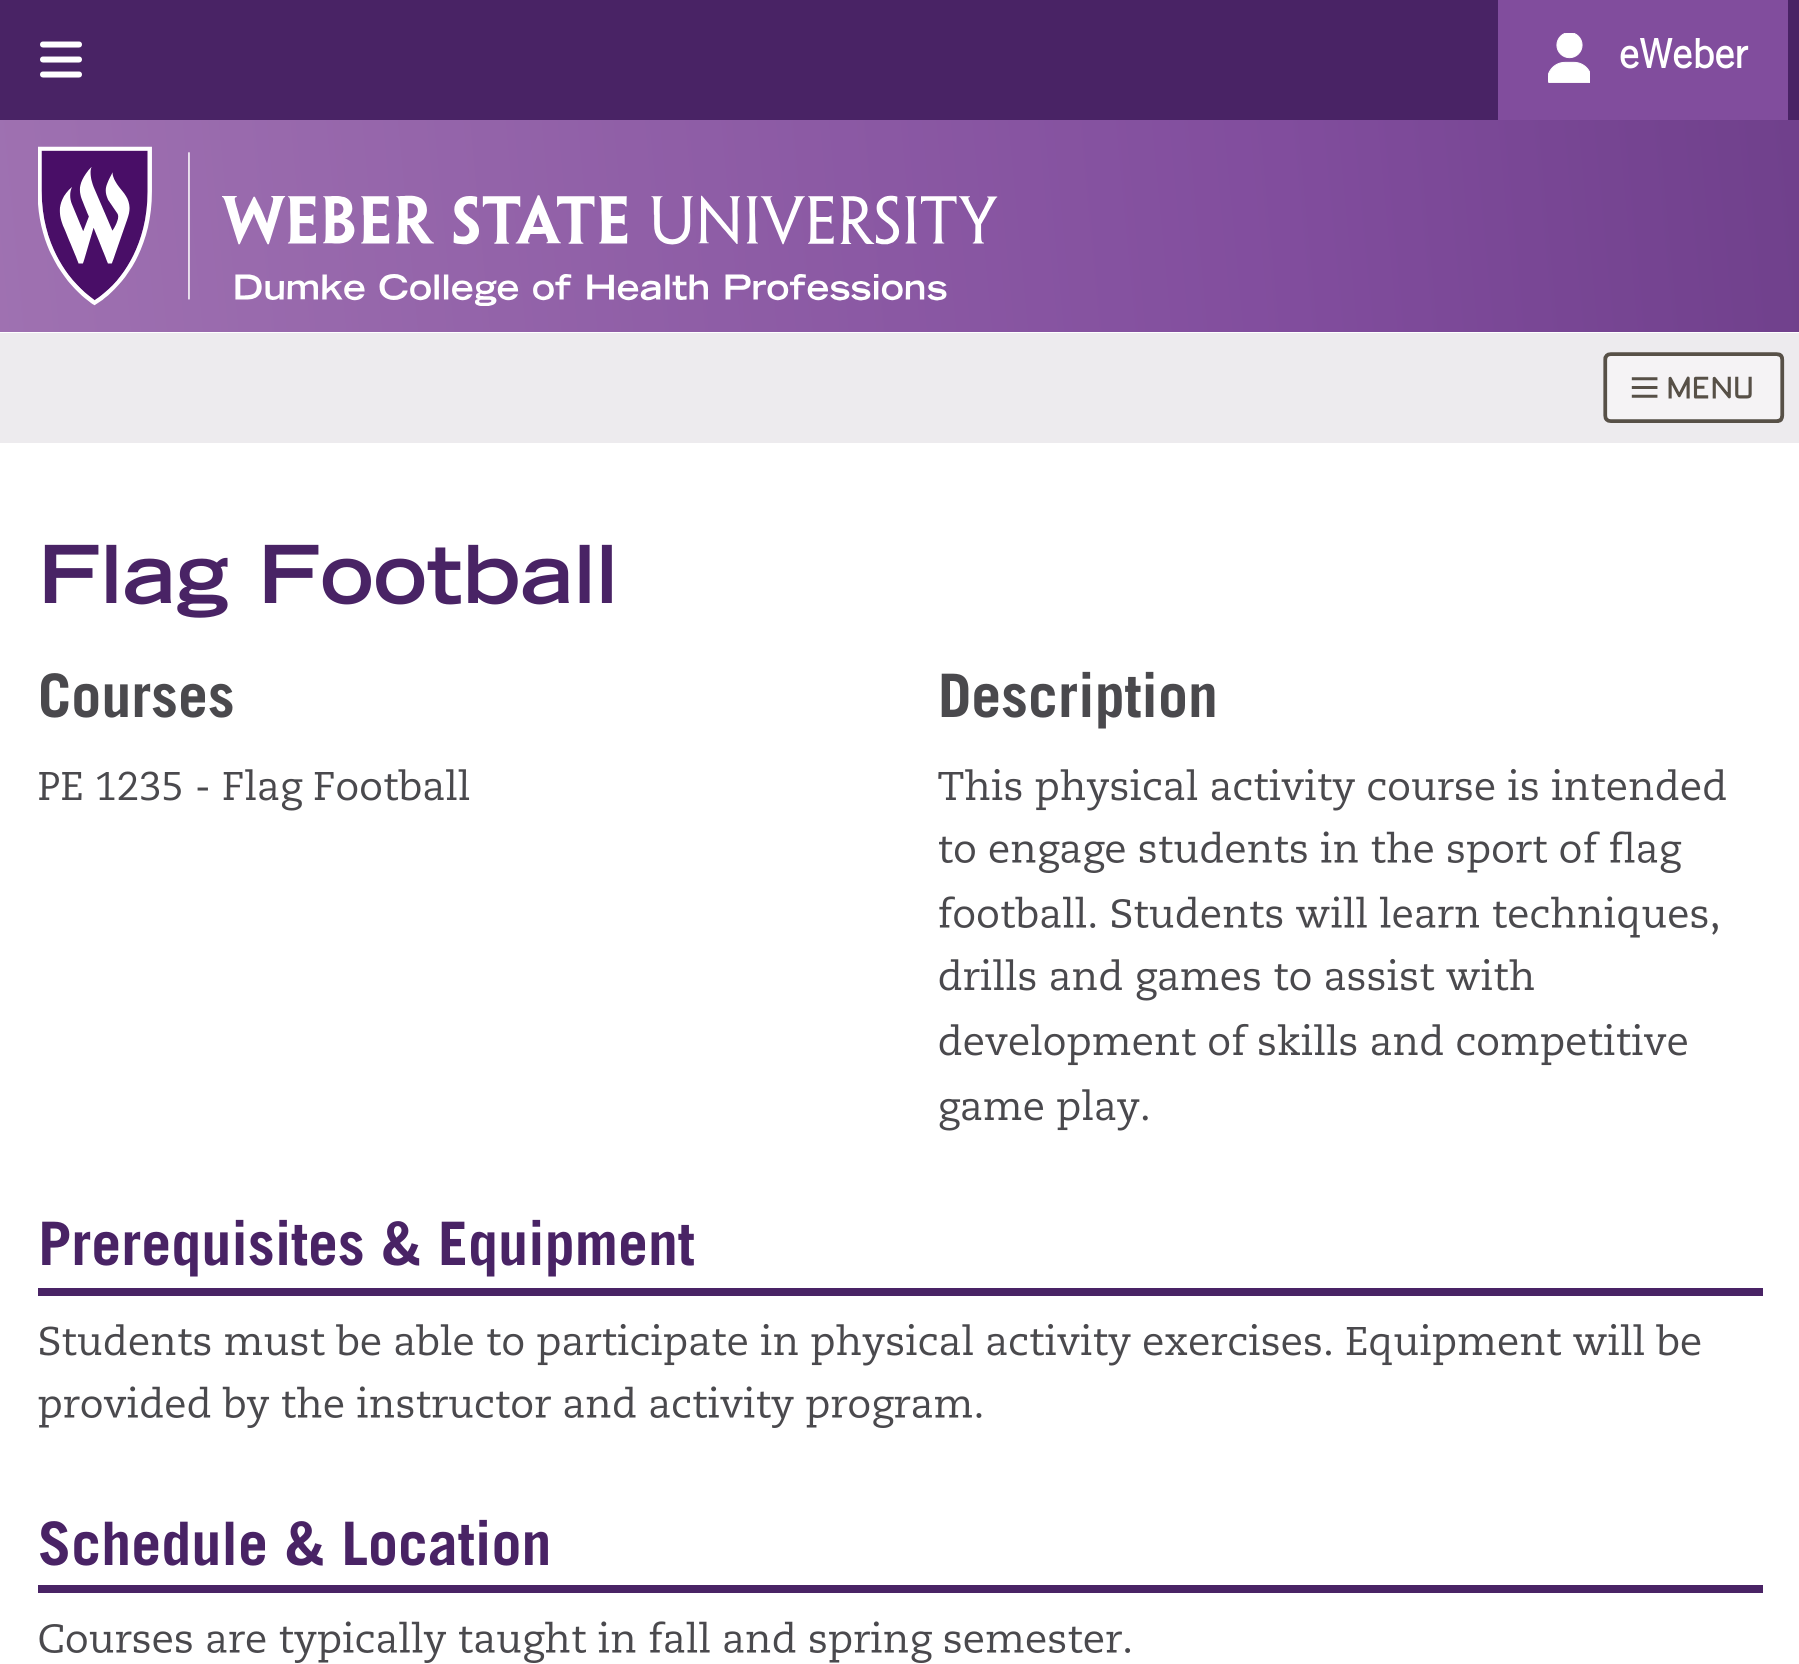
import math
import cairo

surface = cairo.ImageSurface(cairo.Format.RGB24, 1799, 1664)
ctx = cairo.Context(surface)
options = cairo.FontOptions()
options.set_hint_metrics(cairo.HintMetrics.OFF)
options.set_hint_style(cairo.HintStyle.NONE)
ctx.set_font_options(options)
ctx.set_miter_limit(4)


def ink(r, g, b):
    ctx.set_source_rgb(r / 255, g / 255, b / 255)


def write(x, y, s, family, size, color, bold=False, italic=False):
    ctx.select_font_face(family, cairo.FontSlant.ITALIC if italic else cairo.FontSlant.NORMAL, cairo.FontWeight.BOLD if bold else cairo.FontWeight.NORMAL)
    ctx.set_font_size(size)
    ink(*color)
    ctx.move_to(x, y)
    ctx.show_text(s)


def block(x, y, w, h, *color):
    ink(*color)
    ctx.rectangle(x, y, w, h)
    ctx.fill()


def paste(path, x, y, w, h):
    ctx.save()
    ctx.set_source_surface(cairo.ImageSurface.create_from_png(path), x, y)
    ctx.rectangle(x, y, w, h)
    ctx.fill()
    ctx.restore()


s1 = dict(family="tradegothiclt", size=40, color=(255, 255, 255), bold=True)
s2 = dict(family="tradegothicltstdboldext", size=80, color=(73, 35, 101), bold=True)
s3 = dict(family="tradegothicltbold", size=60, color=(74, 73, 77), bold=True)
s4 = dict(family="tradegothicltbold", size=60, color=(73, 35, 101), bold=True)

ink(255, 255, 255)
ctx.paint()
block(0, 0, 1799, 120, 73, 35, 101)
paste("pic1.png", 40, 41, 42, 37)
block(1498, 0, 290, 120, 129, 77, 157)
paste("pic2.png", 1548, 33, 42, 50)
write(1619, 68, "eWeber", **s1)
gradient = cairo.LinearGradient(-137, 361, 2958, 66)
gradient.add_color_stop_rgba(0, 0.635, 0.459, 0.702, 1)
gradient.add_color_stop_rgba(0.46, 0.506, 0.302, 0.616, 1)
gradient.add_color_stop_rgba(1, 0.286, 0.137, 0.396, 1)
ctx.set_source(gradient)
ctx.rectangle(0, 120, 1799, 212)
ctx.fill()
paste("pic3.png", 38, 146, 960, 160)
block(0, 333, 1799, 110, 237, 235, 238)
paste("pic4.png", 1603, 352, 182, 71)
write(38, 603, "Flag Football", **s2)
write(38, 717, "Courses", **s3)
paste("pic5.png", 39, 769, 431, 42)
write(938, 717, "Description", **s3)
paste("pic6.png", 938, 768, 788, 43)
paste("pic7.png", 939, 831, 743, 42)
paste("pic8.png", 939, 896, 779, 42)
paste("pic9.png", 939, 958, 595, 43)
paste("pic10.png", 939, 1023, 748, 43)
paste("pic11.png", 939, 1089, 209, 42)
block(38, 1288, 1725, 8, 73, 35, 101)
write(38, 1265, "Prerequisites & Equipment", **s4)
paste("pic12.png", 40, 1323, 1661, 43)
paste("pic13.png", 38, 1386, 944, 42)
block(38, 1585, 1725, 8, 73, 35, 101)
write(38, 1565, "Schedule & Location", **s4)
paste("pic14.png", 39, 1621, 1092, 42)
surface.write_to_png("screenshot.png")
